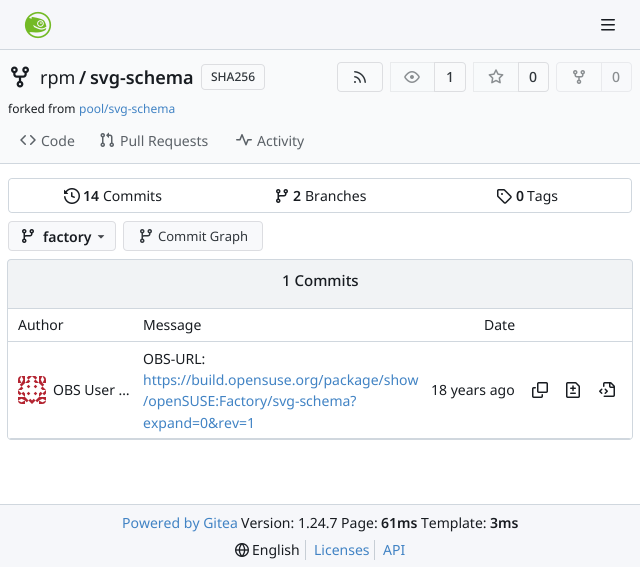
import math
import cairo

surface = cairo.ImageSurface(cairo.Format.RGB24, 640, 567)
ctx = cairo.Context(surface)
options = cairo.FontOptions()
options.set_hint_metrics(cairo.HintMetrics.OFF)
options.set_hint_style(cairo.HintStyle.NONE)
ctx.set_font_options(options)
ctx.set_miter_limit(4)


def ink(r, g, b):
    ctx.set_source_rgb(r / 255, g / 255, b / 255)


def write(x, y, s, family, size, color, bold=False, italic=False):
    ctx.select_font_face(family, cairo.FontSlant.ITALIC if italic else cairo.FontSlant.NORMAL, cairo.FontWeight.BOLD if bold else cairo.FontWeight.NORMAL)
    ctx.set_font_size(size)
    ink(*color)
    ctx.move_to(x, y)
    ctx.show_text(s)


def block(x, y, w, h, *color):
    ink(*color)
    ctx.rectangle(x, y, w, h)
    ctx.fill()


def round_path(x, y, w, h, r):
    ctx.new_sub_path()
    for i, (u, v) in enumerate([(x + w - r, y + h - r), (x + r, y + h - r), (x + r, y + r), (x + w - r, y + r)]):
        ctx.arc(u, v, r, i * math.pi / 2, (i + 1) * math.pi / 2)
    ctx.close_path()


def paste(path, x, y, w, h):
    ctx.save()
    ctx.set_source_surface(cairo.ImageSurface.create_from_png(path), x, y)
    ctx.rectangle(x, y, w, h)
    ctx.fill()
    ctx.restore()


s1 = dict(family="Noto Sans", size=18, color=(24, 28, 33))
s2 = dict(family="Noto Sans SemiBold", size=18, color=(24, 28, 33))
s3 = dict(family="Noto Sans Medium", size=12, color=(48, 54, 59))
s4 = dict(family="Noto Sans Medium", size=14, color=(48, 54, 59))
s5 = dict(family="Noto Sans Medium", size=14, color=(138, 142, 145))
s6 = dict(family="Noto Sans", size=12, color=(24, 28, 33))
s7 = dict(family="Noto Sans", size=12, color=(65, 131, 196))
s8 = dict(family="Noto Sans", size=14, color=(91, 97, 103))
s9 = dict(family="Noto Sans SemiBold", size=14, color=(24, 28, 33))
s10 = dict(family="Noto Sans", size=14, color=(24, 28, 33))
s11 = dict(family="Noto Sans", size=13, color=(48, 54, 59))
s12 = dict(family="Noto Sans Medium", size=15, color=(24, 28, 33))
s13 = dict(family="Noto Sans", size=14, color=(65, 131, 196))

ink(255, 255, 255)
ctx.paint()
block(0, 0, 640, 49, 246, 247, 250)
block(0, 49, 640, 1, 208, 215, 222)
paste("pic1.png", 24, 11, 28, 28)
paste("pic2.png", 601, 19, 14, 12)
block(0, 50, 640, 113, 249, 250, 251)
paste("pic3.png", 11, 66, 18, 22)
write(40, 84, "rpm", **s1)
write(79, 84, "/", **s2)
write(90, 84, "svg-schema", **s2)
round_path(201.5, 64.5, 63, 25, 3.5)
ink(221, 222, 225)
ctx.set_line_width(1)
ctx.stroke()
write(211, 81, "SHA256", **s3)
round_path(337.5, 62.5, 45, 29, 3.5)
ink(221, 222, 225)
ctx.stroke()
paste("pic4.png", 354, 71, 12, 12)
ctx.new_path()
ctx.move_to(434.5, 62.5)
ctx.line_to(462, 62.5)
ctx.curve_to(464, 62.5, 465.5, 64, 465.5, 66)
ctx.line_to(465.5, 88)
ctx.curve_to(465.5, 90, 464, 91.5, 462, 91.5)
ctx.line_to(434.5, 91.5)
ctx.close_path()
ctx.stroke()
ctx.set_source_rgba(0.973, 0.976, 0.984, 0.55)
ctx.new_path()
ctx.move_to(394, 62)
ctx.line_to(435, 62)
ctx.line_to(435, 92)
ctx.line_to(394, 92)
ctx.curve_to(392, 92, 390, 90, 390, 88)
ctx.line_to(390, 66)
ctx.curve_to(390, 64, 392, 62, 394, 62)
ctx.close_path()
ctx.fill()
ctx.rectangle(390.5, 62.5, 44, 29)
ctx.set_source_rgba(0, 0, 0.09, 0.06)
ctx.stroke()
paste("pic5.png", 404, 71, 16, 12)
write(446, 82, "1", **s4)
ctx.new_path()
ctx.move_to(518.5, 62.5)
ctx.line_to(545, 62.5)
ctx.curve_to(547, 62.5, 548.5, 64, 548.5, 66)
ctx.line_to(548.5, 88)
ctx.curve_to(548.5, 90, 547, 91.5, 545, 91.5)
ctx.line_to(518.5, 91.5)
ctx.close_path()
ink(221, 222, 225)
ctx.stroke()
ctx.set_source_rgba(0.973, 0.976, 0.984, 0.55)
ctx.new_path()
ctx.move_to(477, 62)
ctx.line_to(519, 62)
ctx.line_to(519, 92)
ctx.line_to(477, 92)
ctx.curve_to(475, 92, 473, 90, 473, 88)
ctx.line_to(473, 66)
ctx.curve_to(473, 64, 475, 62, 477, 62)
ctx.close_path()
ctx.fill()
ctx.rectangle(473.5, 62.5, 45, 29)
ctx.set_source_rgba(0, 0, 0.09, 0.06)
ctx.stroke()
paste("pic6.png", 488, 69, 16, 15)
write(529, 82, "0", **s4)
ctx.new_path()
ctx.move_to(560, 62.5)
ctx.line_to(601.5, 62.5)
ctx.line_to(601.5, 91.5)
ctx.line_to(560, 91.5)
ctx.curve_to(558, 91.5, 556.5, 90, 556.5, 88)
ctx.line_to(556.5, 66)
ctx.curve_to(556.5, 64, 558, 62.5, 560, 62.5)
ctx.close_path()
ink(233, 234, 237)
ctx.stroke()
paste("pic7.png", 573, 70, 12, 14)
ink(248, 249, 251)
ctx.new_path()
ctx.move_to(601.5, 62.5)
ctx.line_to(628, 62.5)
ctx.curve_to(630, 62.5, 631.5, 64, 631.5, 66)
ctx.line_to(631.5, 88)
ctx.curve_to(631.5, 90, 630, 91.5, 628, 91.5)
ctx.line_to(601.5, 91.5)
ctx.close_path()
ctx.fill_preserve()
ink(233, 234, 237)
ctx.stroke()
write(612, 82, "0", **s5)
write(8, 113, "forked from", **s6)
write(79, 113, "pool/svg-schema", **s7)
paste("pic8.png", 20, 135, 16, 10)
write(41, 146, "Code", **s8)
paste("pic9.png", 100, 132, 14, 15)
write(120, 146, "Pull Requests", **s8)
paste("pic10.png", 236, 134, 16, 12)
write(257, 146, "Activity", **s8)
block(0, 163, 640, 1, 208, 215, 222)
round_path(8.5, 178.5, 623, 34, 3.5)
ctx.stroke()
ink(255, 255, 255)
round_path(9, 179, 622, 33, 4)
ctx.fill()
paste("pic11.png", 64, 188, 16, 16)
write(83, 201, "14", **s9)
write(103, 201, "Commits", **s10)
paste("pic12.png", 276, 189, 12, 14)
write(293, 201, "2", **s9)
write(305, 201, "Branches", **s10)
paste("pic13.png", 497, 189, 15, 15)
write(516, 201, "0", **s9)
write(527, 201, "Tags", **s10)
ink(248, 249, 251)
round_path(8.5, 221.5, 107, 29, 3.5)
ctx.fill_preserve()
ink(220, 221, 225)
ctx.stroke()
paste("pic14.png", 22, 229, 12, 14)
write(43, 242, "factory", **s9)
paste("pic15.png", 97, 235, 8, 4)
ink(248, 249, 251)
round_path(123.5, 221.5, 139, 29, 3.5)
ctx.fill_preserve()
ink(220, 221, 225)
ctx.stroke()
paste("pic16.png", 140, 229, 12, 14)
write(158, 241, "Commit Graph", **s11)
ink(241, 243, 245)
ctx.new_path()
ctx.move_to(11, 259.5)
ctx.line_to(629, 259.5)
ctx.curve_to(631, 259.5, 632.5, 261, 632.5, 263)
ctx.line_to(632.5, 308.5)
ctx.line_to(7.5, 308.5)
ctx.line_to(7.5, 263)
ctx.curve_to(7.5, 261, 9, 259.5, 11, 259.5)
ctx.close_path()
ctx.fill_preserve()
ink(208, 215, 222)
ctx.stroke()
write(282, 286, "1 Commits", **s12)
ink(208, 215, 222)
ctx.set_fill_rule(cairo.FillRule.EVEN_ODD)
ctx.new_path()
ctx.move_to(7, 309)
ctx.line_to(633, 309)
ctx.line_to(633, 436)
ctx.curve_to(633, 438, 631, 440, 629, 440)
ctx.line_to(11, 440)
ctx.curve_to(9, 440, 7, 438, 7, 436)
ctx.close_path()
ctx.move_to(8, 309)
ctx.line_to(632, 309)
ctx.line_to(632, 436)
ctx.curve_to(632, 438, 631, 439, 629, 439)
ctx.line_to(11, 439)
ctx.curve_to(9, 439, 8, 438, 8, 436)
ctx.close_path()
ctx.fill()
block(8, 341, 624, 1, 208, 215, 222)
write(18, 330, "Author", **s10)
write(143, 330, "Message", **s10)
write(484, 330, "Date", **s10)
ctx.save()
ctx.set_fill_rule(cairo.FillRule.WINDING)
ctx.new_path()
ctx.move_to(8, 309)
ctx.line_to(632, 309)
ctx.line_to(632, 436)
ctx.curve_to(632, 437.5, 630.5, 439, 629, 439)
ctx.line_to(11, 439)
ctx.curve_to(9.5, 439, 8, 437.5, 8, 436)
ctx.close_path()
ctx.clip()
block(8, 438, 624, 1, 208, 215, 222)
ctx.restore()
paste("pic17.png", 18, 376, 28, 28)
write(53, 395, "OBS User …", **s10)
write(143, 364, "OBS-URL:", **s10)
write(143, 385, "https://build.opensuse.org/package/show", **s13)
write(143, 406, "/openSUSE:Factory/svg-schema?", **s13)
write(143, 428, "expand=0&rev=1", **s13)
write(431, 395, "18 years ago", **s10)
paste("pic18.png", 532, 382, 16, 16)
paste("pic19.png", 566, 382, 14, 16)
paste("pic20.png", 599, 382, 16, 15)
block(0, 505, 640, 62, 246, 247, 250)
block(0, 504, 640, 1, 208, 215, 222)
write(122, 528, "Powered by Gitea", **s13)
write(241, 528, "Version: 1.24.7 Page:", **s10)
write(381, 528, "61ms", **s9)
write(421, 528, "Template:", **s10)
write(490, 528, "3ms", **s9)
paste("pic21.png", 235, 543, 14, 14)
write(252, 555, "English", **s10)
block(305, 540, 1, 20, 199, 206, 213)
write(314, 555, "Licenses", **s13)
block(374, 540, 1, 20, 199, 206, 213)
write(383, 555, "API", **s13)
surface.write_to_png("screenshot.png")
